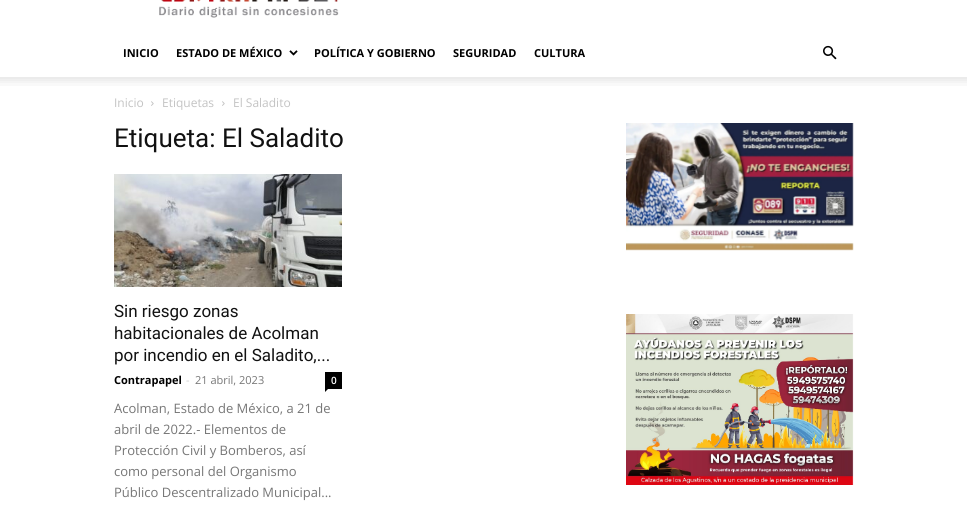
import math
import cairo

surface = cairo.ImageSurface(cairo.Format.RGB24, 967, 512)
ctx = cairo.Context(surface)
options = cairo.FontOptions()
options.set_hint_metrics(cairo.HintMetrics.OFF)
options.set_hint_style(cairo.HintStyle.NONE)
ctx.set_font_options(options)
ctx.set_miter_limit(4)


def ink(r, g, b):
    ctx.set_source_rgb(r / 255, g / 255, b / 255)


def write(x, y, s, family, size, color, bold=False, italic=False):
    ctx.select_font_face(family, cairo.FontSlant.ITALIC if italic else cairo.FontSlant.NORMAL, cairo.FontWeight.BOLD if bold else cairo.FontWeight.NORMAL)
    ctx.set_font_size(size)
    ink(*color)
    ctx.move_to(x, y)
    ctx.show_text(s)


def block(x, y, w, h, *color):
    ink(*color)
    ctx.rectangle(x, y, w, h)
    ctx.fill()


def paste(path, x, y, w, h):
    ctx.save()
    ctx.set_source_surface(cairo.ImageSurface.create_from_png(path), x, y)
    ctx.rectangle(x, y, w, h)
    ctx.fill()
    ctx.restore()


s1 = dict(family="Open Sans", size=11, color=(0, 0, 0), bold=True)
s2 = dict(family="Open Sans", size=12, color=(195, 195, 195))
s3 = dict(family="Roboto", size=26, color=(17, 17, 17))
s4 = dict(family="Roboto", size=17, color=(17, 17, 17))
s5 = dict(family="Open Sans", size=11, color=(204, 204, 204))
s6 = dict(family="Open Sans", size=11, color=(118, 118, 118))
s7 = dict(family="Open Sans SemiBold", size=10, color=(255, 255, 255))
s8 = dict(family="Open Sans", size=13, color=(118, 118, 118))

ink(255, 255, 255)
ctx.paint()
paste("pic1.png", 159, 0, 180, 18)
write(123, 57, "INICIO", **s1)
write(176, 57, "ESTADO DE MÉXICO", **s1)
paste("pic2.png", 289, 50, 9, 6)
write(314, 57, "POLÍTICA Y GOBIERNO", **s1)
write(453, 57, "SEGURIDAD", **s1)
write(534, 57, "CULTURA", **s1)
paste("pic3.png", 823, 45, 14, 15)
paste("pic4.png", 0, 77, 967, 9)
write(114, 107, "Inicio", **s2)
paste("pic5.png", 151, 101, 3, 5)
write(162, 107, "Etiquetas", **s2)
paste("pic5.png", 222, 101, 3, 5)
write(233, 107, "El Saladito", **s2)
write(114, 147, "Etiqueta: El Saladito", **s3)
paste("pic6.png", 114, 174, 228, 113)
write(114, 317, "Sin riesgo zonas", **s4)
write(114, 339, "habitacionales de Acolman", **s4)
write(114, 361, "por incendio en el Saladito,...", **s4)
write(114, 384, "Contrapapel", **s1)
write(186, 384, "-", **s5)
write(195, 384, "21 abril, 2023", **s6)
block(325, 372, 17, 17, 0, 0, 0)
write(331, 384, "0", **s7)
ink(0, 0, 0)
ctx.new_path()
ctx.move_to(325, 389)
ctx.line_to(328, 389)
ctx.line_to(325, 392)
ctx.close_path()
ctx.fill()
write(114, 413, "Acolman, Estado de México, a 21 de", **s8)
write(114, 434, "abril de 2022.- Elementos de", **s8)
write(114, 455, "Protección Civil y Bomberos, así", **s8)
write(114, 476, "como personal del Organismo", **s8)
write(114, 497, "Público Descentralizado Municipal...", **s8)
paste("pic7.png", 626, 123, 228, 128)
paste("pic8.png", 626, 314, 228, 171)
surface.write_to_png("screenshot.png")
